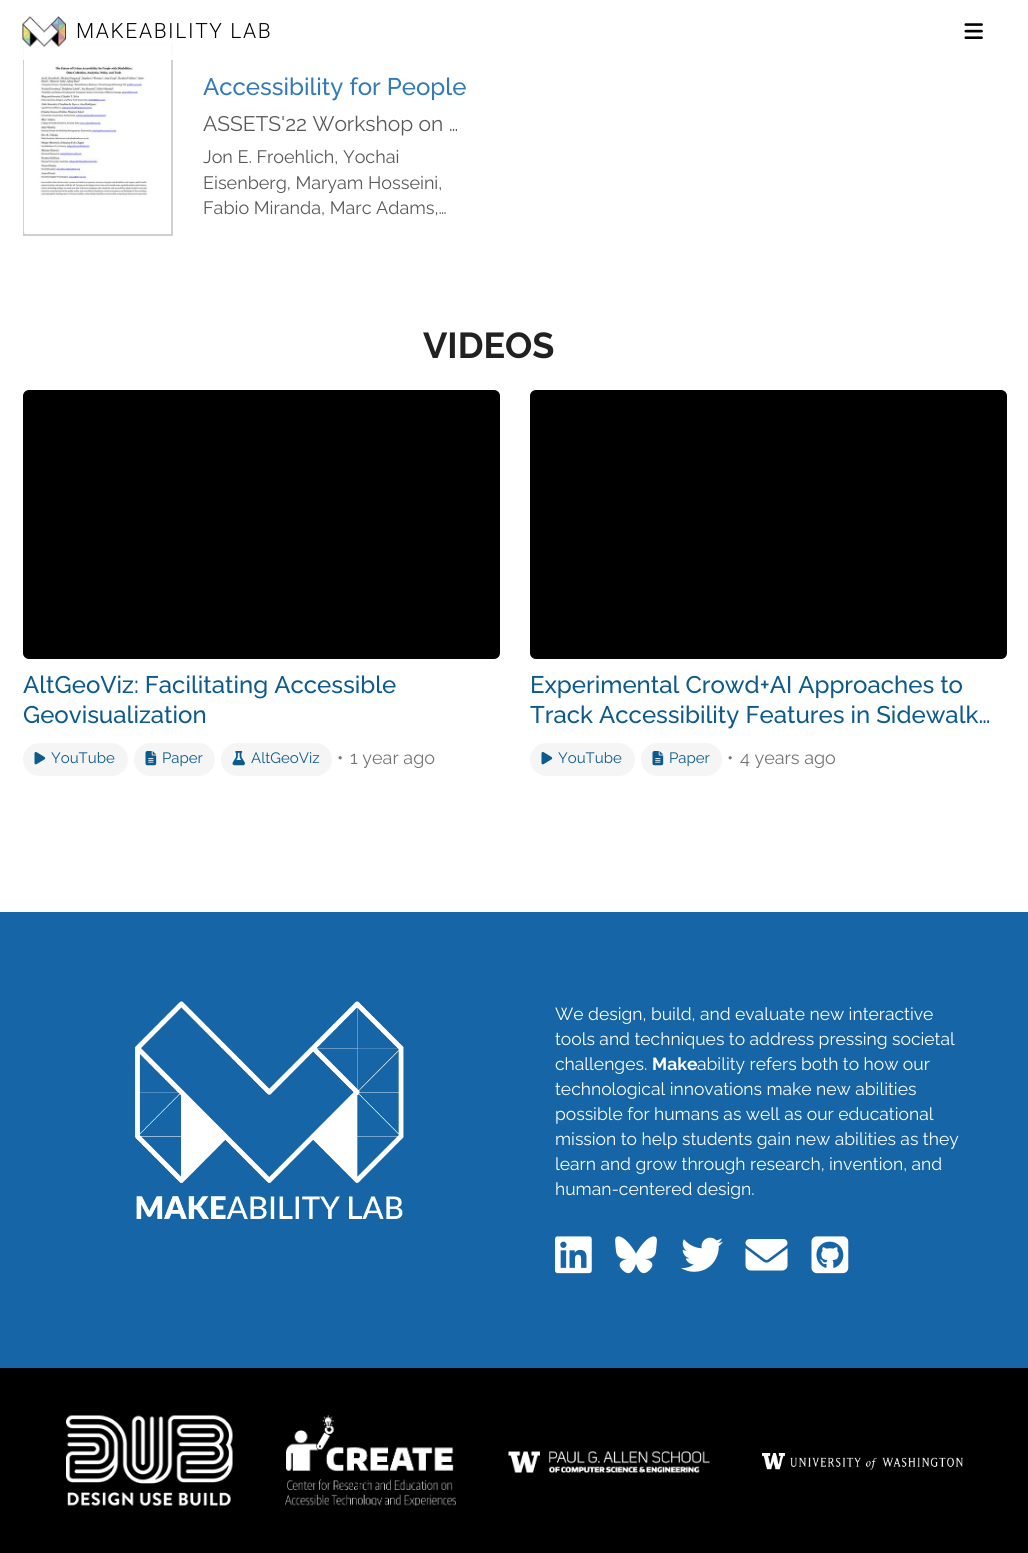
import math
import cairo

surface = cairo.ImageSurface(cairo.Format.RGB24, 1028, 1553)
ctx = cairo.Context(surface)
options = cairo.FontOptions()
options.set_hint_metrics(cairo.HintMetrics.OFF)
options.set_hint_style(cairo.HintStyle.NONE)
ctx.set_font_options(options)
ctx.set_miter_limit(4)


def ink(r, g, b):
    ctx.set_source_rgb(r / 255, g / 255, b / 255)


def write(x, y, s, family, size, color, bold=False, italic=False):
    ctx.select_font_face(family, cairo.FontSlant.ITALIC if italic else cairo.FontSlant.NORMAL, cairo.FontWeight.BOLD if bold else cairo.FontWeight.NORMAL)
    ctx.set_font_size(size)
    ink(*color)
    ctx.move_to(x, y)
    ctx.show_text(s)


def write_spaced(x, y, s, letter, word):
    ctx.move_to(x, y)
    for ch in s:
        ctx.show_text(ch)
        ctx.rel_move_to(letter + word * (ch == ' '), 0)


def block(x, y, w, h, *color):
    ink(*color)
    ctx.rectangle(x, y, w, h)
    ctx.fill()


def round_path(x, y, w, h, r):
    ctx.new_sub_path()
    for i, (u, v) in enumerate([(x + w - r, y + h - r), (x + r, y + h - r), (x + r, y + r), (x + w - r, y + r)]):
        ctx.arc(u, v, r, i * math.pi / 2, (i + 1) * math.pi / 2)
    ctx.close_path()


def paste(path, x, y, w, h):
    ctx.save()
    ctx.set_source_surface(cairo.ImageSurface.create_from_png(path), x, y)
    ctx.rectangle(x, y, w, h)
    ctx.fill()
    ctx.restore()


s1 = dict(family="Raleway Medium", size=24, color=(51, 122, 183))
s2 = dict(family="Raleway", size=21, color=(89, 89, 89))
s3 = dict(family="Raleway", size=18, color=(89, 89, 89))
s4 = dict(family="Raleway", size=36, color=(33, 33, 33), bold=True)
s5 = dict(family="Raleway Medium", size=24, color=(13, 90, 140))
s6 = dict(family="Raleway", size=15, color=(13, 90, 140))
s7 = dict(family="Raleway", size=18, color=(117, 117, 117))
s8 = dict(family="Raleway", size=17.5, color=(255, 255, 255))
s9 = dict(family="Raleway", size=17.5, color=(255, 255, 255), bold=True)

ink(255, 255, 255)
ctx.paint()
ctx.rectangle(24, 45, 148, 190)
ink(208, 208, 208)
ctx.stroke()
paste("pic3.png", 24, 44, 147, 190)
ctx.set_source_rgba(1, 1, 1, 0.9)
ctx.rectangle(23, 44, 150, 16)
ctx.fill()
paste("pic1.png", 22, 16, 44, 31)
ctx.select_font_face("Roboto Light")
ctx.set_font_size(21)
ink(0, 0, 0)
write_spaced(76, 38, "MAKEABILITY LAB", 1.6, 0)
paste("pic2.png", 964, 23, 19, 16)
write(203, 95, "Accessibility for People", **s1)
write(203, 131, "ASSETS'22 Workshop on …", **s2)
write(203, 163, "Jon E. Froehlich, Yochai", **s3)
write(203, 189, "Eisenberg, Maryam Hosseini,", **s3)
write(203, 214, "Fabio Miranda, Marc Adams,…", **s3)
write(423, 358, "VIDEOS", **s4)
ink(0, 0, 0)
round_path(23, 390, 477, 269, 6)
ctx.fill()
write(23, 693, "AltGeoViz: Facilitating Accessible", **s5)
write(23, 723, "Geovisualization", **s5)
ink(245, 245, 245)
round_path(23, 743, 105, 33, 16.5)
ctx.fill()
paste("pic4.png", 34, 751, 12, 14)
write(51, 763, "YouTube", **s6)
ink(245, 245, 245)
round_path(134, 743, 81, 33, 16.5)
ctx.fill()
paste("pic5.png", 145, 751, 12, 15)
write(162, 763, "Paper", **s6)
ink(245, 245, 245)
round_path(221, 743, 111, 33, 16.5)
ctx.fill()
paste("pic6.png", 232, 751, 13, 15)
write(251, 763, "AltGeoViz", **s6)
write(337, 764, "•", **s7)
write(350, 764, "1 year ago", **s7)
ink(0, 0, 0)
round_path(530, 390, 477, 269, 6)
ctx.fill()
write(530, 693, "Experimental Crowd+AI Approaches to", **s5)
write(530, 723, "Track Accessibility Features in Sidewalk…", **s5)
ink(245, 245, 245)
round_path(530, 743, 105, 33, 16.5)
ctx.fill()
paste("pic4.png", 541, 751, 12, 14)
write(558, 763, "YouTube", **s6)
ink(245, 245, 245)
round_path(641, 743, 81, 33, 16.5)
ctx.fill()
paste("pic5.png", 652, 751, 12, 15)
write(669, 763, "Paper", **s6)
write(727, 764, "•", **s7)
write(740, 764, "4 years ago", **s7)
block(0, 912, 1028, 456, 21, 101, 167)
paste("pic7.png", 135, 1001, 269, 218)
write(555, 1020, "We design, build, and evaluate new interactive", **s8)
write(555, 1045, "tools and techniques to address pressing societal", **s8)
write(555, 1070, "challenges.", **s8)
write(652, 1070, "Make", **s9)
write(697, 1070, "ability refers both to how our", **s8)
write(555, 1095, "technological innovations make new abilities", **s8)
write(555, 1120, "possible for humans as well as our educational", **s8)
write(555, 1145, "mission to help students gain new abilities as they", **s8)
write(555, 1170, "learn and grow through research, invention, and", **s8)
write(555, 1195, "human-centered design.", **s8)
paste("pic8.png", 555, 1236, 37, 38)
paste("pic9.png", 615, 1236, 42, 38)
paste("pic10.png", 681, 1237, 42, 35)
paste("pic11.png", 745, 1239, 43, 32)
paste("pic12.png", 811, 1236, 38, 38)
block(0, 1368, 1028, 185, 0, 0, 0)
paste("pic13.png", 66, 1415, 167, 91)
paste("pic14.png", 285, 1415, 171, 91)
paste("pic15.png", 508, 1451, 202, 22)
paste("pic16.png", 762, 1453, 201, 17)
surface.write_to_png("screenshot.png")
